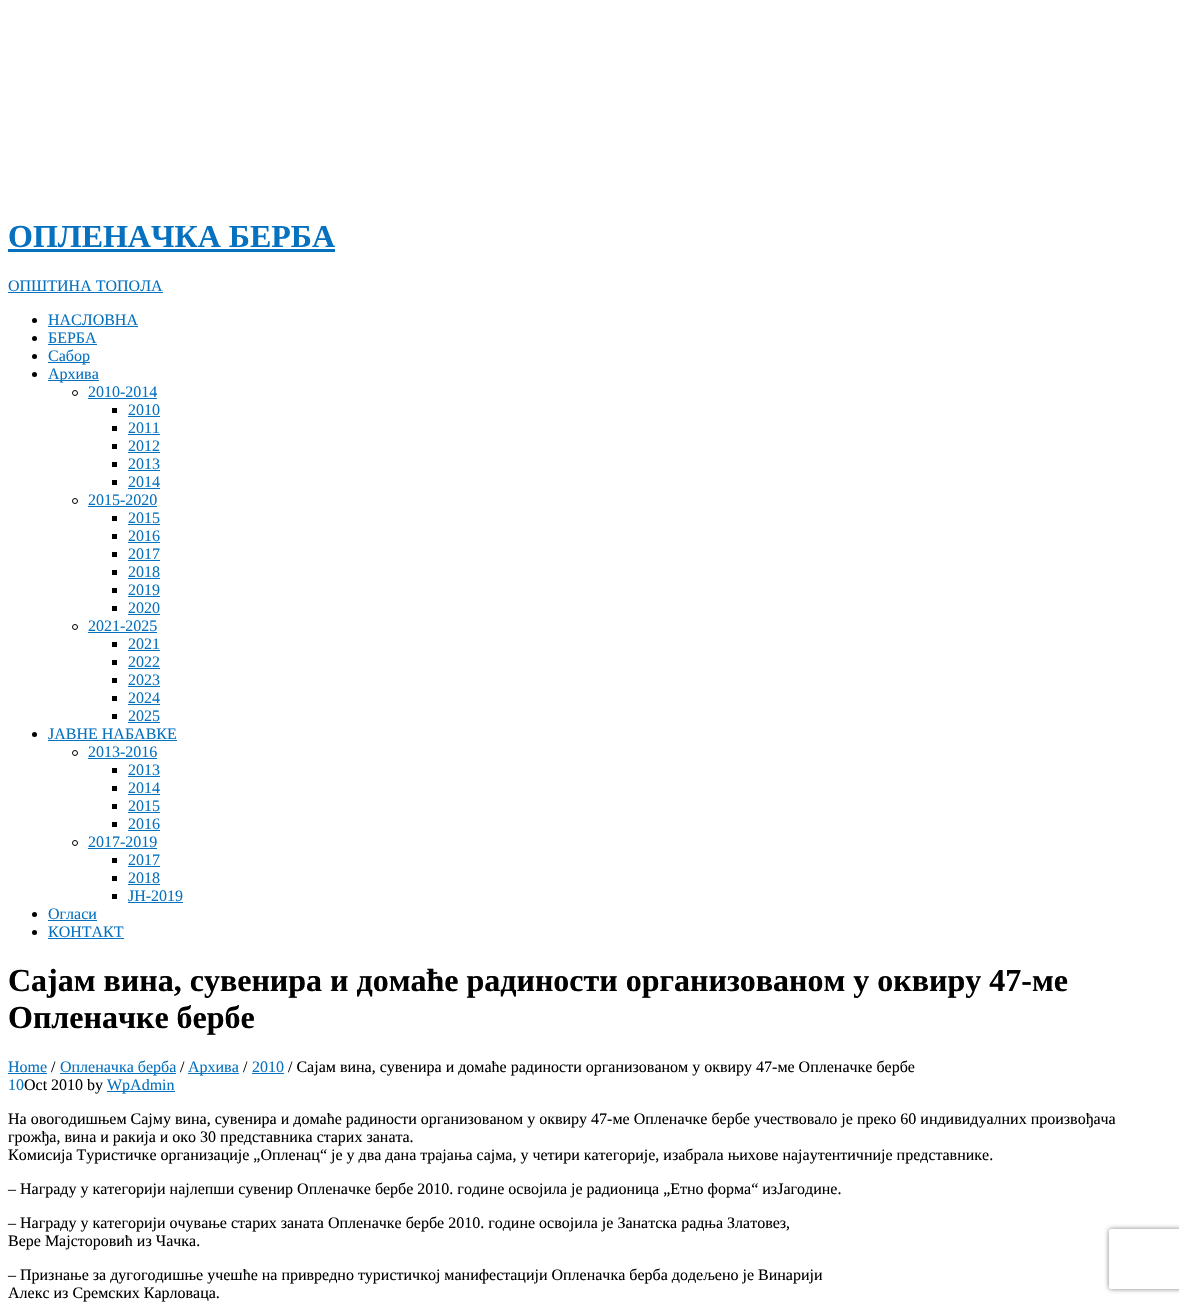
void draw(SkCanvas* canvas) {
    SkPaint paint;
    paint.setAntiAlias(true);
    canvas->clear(0xFFFFFFFF);
    SkFont font1(fontMgr->matchFamilyStyle("Liberation Serif", SkFontStyle::Bold()), 32);
    font1.setSubpixel(true);
    paint.setColor(0xFF0571BF);
    canvas->drawString("ОПЛЕНАЧКА БЕРБА", 8, 247, font1, paint);
    canvas->drawRect(SkRect::MakeXYWH(8, 249, 327, 3), paint);
    SkFont font2(fontMgr->matchFamilyStyle("Liberation Serif", SkFontStyle::Normal()), 16);
    font2.setSubpixel(true);
    canvas->drawString("ОПШТИНА ТОПОЛА", 8, 291, font2, paint);
    canvas->drawRect(SkRect::MakeXYWH(8, 292, 155, 1), paint);
    paint.setColor(0xFF000000);
    canvas->drawCircle(34.5f, 320.5f, 2.5f, paint);
    paint.setColor(0xFF0571BF);
    canvas->drawString("НАСЛОВНА", 48, 325, font2, paint);
    canvas->drawRect(SkRect::MakeXYWH(48, 326, 90, 1), paint);
    paint.setColor(0xFF000000);
    canvas->drawCircle(34.5f, 338.5f, 2.5f, paint);
    paint.setColor(0xFF0571BF);
    canvas->drawString("БЕРБА", 48, 343, font2, paint);
    canvas->drawRect(SkRect::MakeXYWH(48, 344, 49, 1), paint);
    paint.setColor(0xFF000000);
    canvas->drawCircle(34.5f, 356.5f, 2.5f, paint);
    paint.setColor(0xFF0571BF);
    canvas->drawRect(SkRect::MakeXYWH(48, 362, 42, 1), paint);
    canvas->drawString("Сабор", 48, 361, font2, paint);
    paint.setColor(0xFF000000);
    canvas->drawCircle(34.5f, 374.5f, 2.5f, paint);
    paint.setColor(0xFF0571BF);
    canvas->drawRect(SkRect::MakeXYWH(48, 380, 51, 1), paint);
    canvas->drawString("Архива", 48, 379, font2, paint);
    paint.setStyle(SkPaint::kStroke_Style);
    paint.setStrokeWidth(1);
    paint.setColor(0xFF000000);
    canvas->drawCircle(75, 393, 2.5f, paint);
    paint.setStyle(SkPaint::kFill_Style);
    paint.setColor(0xFF0571BF);
    canvas->drawString("2010-2014", 88, 397, font2, paint);
    canvas->drawRect(SkRect::MakeXYWH(88, 398, 69, 1), paint);
    paint.setColor(0xFF000000);
    canvas->drawRect(SkRect::MakeXYWH(112, 408, 5, 5), paint);
    paint.setColor(0xFF0571BF);
    canvas->drawString("2010", 128, 415, font2, paint);
    canvas->drawRect(SkRect::MakeXYWH(128, 416, 32, 1), paint);
    paint.setColor(0xFF000000);
    canvas->drawRect(SkRect::MakeXYWH(112, 426, 5, 5), paint);
    paint.setColor(0xFF0571BF);
    canvas->drawString("2011", 128, 433, font2, paint);
    canvas->drawRect(SkRect::MakeXYWH(128, 434, 32, 1), paint);
    paint.setColor(0xFF000000);
    canvas->drawRect(SkRect::MakeXYWH(112, 444, 5, 5), paint);
    paint.setColor(0xFF0571BF);
    canvas->drawString("2012", 128, 451, font2, paint);
    canvas->drawRect(SkRect::MakeXYWH(128, 452, 32, 1), paint);
    paint.setColor(0xFF000000);
    canvas->drawRect(SkRect::MakeXYWH(112, 462, 5, 5), paint);
    paint.setColor(0xFF0571BF);
    canvas->drawString("2013", 128, 469, font2, paint);
    canvas->drawRect(SkRect::MakeXYWH(128, 470, 32, 1), paint);
    paint.setColor(0xFF000000);
    canvas->drawRect(SkRect::MakeXYWH(112, 480, 5, 5), paint);
    paint.setColor(0xFF0571BF);
    canvas->drawString("2014", 128, 487, font2, paint);
    canvas->drawRect(SkRect::MakeXYWH(128, 488, 32, 1), paint);
    paint.setStyle(SkPaint::kStroke_Style);
    paint.setColor(0xFF000000);
    canvas->drawCircle(75, 501, 2.5f, paint);
    paint.setStyle(SkPaint::kFill_Style);
    paint.setColor(0xFF0571BF);
    canvas->drawString("2015-2020", 88, 505, font2, paint);
    canvas->drawRect(SkRect::MakeXYWH(88, 506, 69, 1), paint);
    paint.setColor(0xFF000000);
    canvas->drawRect(SkRect::MakeXYWH(112, 516, 5, 5), paint);
    paint.setColor(0xFF0571BF);
    canvas->drawString("2015", 128, 523, font2, paint);
    canvas->drawRect(SkRect::MakeXYWH(128, 524, 32, 1), paint);
    paint.setColor(0xFF000000);
    canvas->drawRect(SkRect::MakeXYWH(112, 534, 5, 5), paint);
    paint.setColor(0xFF0571BF);
    canvas->drawString("2016", 128, 541, font2, paint);
    canvas->drawRect(SkRect::MakeXYWH(128, 542, 32, 1), paint);
    paint.setColor(0xFF000000);
    canvas->drawRect(SkRect::MakeXYWH(112, 552, 5, 5), paint);
    paint.setColor(0xFF0571BF);
    canvas->drawString("2017", 128, 559, font2, paint);
    canvas->drawRect(SkRect::MakeXYWH(128, 560, 32, 1), paint);
    paint.setColor(0xFF000000);
    canvas->drawRect(SkRect::MakeXYWH(112, 570, 5, 5), paint);
    paint.setColor(0xFF0571BF);
    canvas->drawString("2018", 128, 577, font2, paint);
    canvas->drawRect(SkRect::MakeXYWH(128, 578, 32, 1), paint);
    paint.setColor(0xFF000000);
    canvas->drawRect(SkRect::MakeXYWH(112, 588, 5, 5), paint);
    paint.setColor(0xFF0571BF);
    canvas->drawString("2019", 128, 595, font2, paint);
    canvas->drawRect(SkRect::MakeXYWH(128, 596, 32, 1), paint);
    paint.setColor(0xFF000000);
    canvas->drawRect(SkRect::MakeXYWH(112, 606, 5, 5), paint);
    paint.setColor(0xFF0571BF);
    canvas->drawString("2020", 128, 613, font2, paint);
    canvas->drawRect(SkRect::MakeXYWH(128, 614, 32, 1), paint);
    paint.setStyle(SkPaint::kStroke_Style);
    paint.setColor(0xFF000000);
    canvas->drawCircle(75, 627, 2.5f, paint);
    paint.setStyle(SkPaint::kFill_Style);
    paint.setColor(0xFF0571BF);
    canvas->drawString("2021-2025", 88, 631, font2, paint);
    canvas->drawRect(SkRect::MakeXYWH(88, 632, 69, 1), paint);
    paint.setColor(0xFF000000);
    canvas->drawRect(SkRect::MakeXYWH(112, 642, 5, 5), paint);
    paint.setColor(0xFF0571BF);
    canvas->drawString("2021", 128, 649, font2, paint);
    canvas->drawRect(SkRect::MakeXYWH(128, 650, 32, 1), paint);
    paint.setColor(0xFF000000);
    canvas->drawRect(SkRect::MakeXYWH(112, 660, 5, 5), paint);
    paint.setColor(0xFF0571BF);
    canvas->drawString("2022", 128, 667, font2, paint);
    canvas->drawRect(SkRect::MakeXYWH(128, 668, 32, 1), paint);
    paint.setColor(0xFF000000);
    canvas->drawRect(SkRect::MakeXYWH(112, 678, 5, 5), paint);
    paint.setColor(0xFF0571BF);
    canvas->drawString("2023", 128, 685, font2, paint);
    canvas->drawRect(SkRect::MakeXYWH(128, 686, 32, 1), paint);
    paint.setColor(0xFF000000);
    canvas->drawRect(SkRect::MakeXYWH(112, 696, 5, 5), paint);
    paint.setColor(0xFF0571BF);
    canvas->drawString("2024", 128, 703, font2, paint);
    canvas->drawRect(SkRect::MakeXYWH(128, 704, 32, 1), paint);
    paint.setColor(0xFF000000);
    canvas->drawRect(SkRect::MakeXYWH(112, 714, 5, 5), paint);
    paint.setColor(0xFF0571BF);
    canvas->drawString("2025", 128, 721, font2, paint);
    canvas->drawRect(SkRect::MakeXYWH(128, 722, 32, 1), paint);
    paint.setColor(0xFF000000);
    canvas->drawCircle(34.5f, 734.5f, 2.5f, paint);
    paint.setColor(0xFF0571BF);
    canvas->drawString("ЈАВНЕ НАБАВКЕ", 48, 739, font2, paint);
    canvas->drawRect(SkRect::MakeXYWH(48, 740, 129, 1), paint);
    paint.setStyle(SkPaint::kStroke_Style);
    paint.setColor(0xFF000000);
    canvas->drawCircle(75, 753, 2.5f, paint);
    paint.setStyle(SkPaint::kFill_Style);
    paint.setColor(0xFF0571BF);
    canvas->drawString("2013-2016", 88, 757, font2, paint);
    canvas->drawRect(SkRect::MakeXYWH(88, 758, 69, 1), paint);
    paint.setColor(0xFF000000);
    canvas->drawRect(SkRect::MakeXYWH(112, 768, 5, 5), paint);
    paint.setColor(0xFF0571BF);
    canvas->drawString("2013", 128, 775, font2, paint);
    canvas->drawRect(SkRect::MakeXYWH(128, 776, 32, 1), paint);
    paint.setColor(0xFF000000);
    canvas->drawRect(SkRect::MakeXYWH(112, 786, 5, 5), paint);
    paint.setColor(0xFF0571BF);
    canvas->drawString("2014", 128, 793, font2, paint);
    canvas->drawRect(SkRect::MakeXYWH(128, 794, 32, 1), paint);
    paint.setColor(0xFF000000);
    canvas->drawRect(SkRect::MakeXYWH(112, 804, 5, 5), paint);
    paint.setColor(0xFF0571BF);
    canvas->drawString("2015", 128, 811, font2, paint);
    canvas->drawRect(SkRect::MakeXYWH(128, 812, 32, 1), paint);
    paint.setColor(0xFF000000);
    canvas->drawRect(SkRect::MakeXYWH(112, 822, 5, 5), paint);
    paint.setColor(0xFF0571BF);
    canvas->drawString("2016", 128, 829, font2, paint);
    canvas->drawRect(SkRect::MakeXYWH(128, 830, 32, 1), paint);
    paint.setStyle(SkPaint::kStroke_Style);
    paint.setColor(0xFF000000);
    canvas->drawCircle(75, 843, 2.5f, paint);
    paint.setStyle(SkPaint::kFill_Style);
    paint.setColor(0xFF0571BF);
    canvas->drawString("2017-2019", 88, 847, font2, paint);
    canvas->drawRect(SkRect::MakeXYWH(88, 848, 69, 1), paint);
    paint.setColor(0xFF000000);
    canvas->drawRect(SkRect::MakeXYWH(112, 858, 5, 5), paint);
    paint.setColor(0xFF0571BF);
    canvas->drawString("2017", 128, 865, font2, paint);
    canvas->drawRect(SkRect::MakeXYWH(128, 866, 32, 1), paint);
    paint.setColor(0xFF000000);
    canvas->drawRect(SkRect::MakeXYWH(112, 876, 5, 5), paint);
    paint.setColor(0xFF0571BF);
    canvas->drawString("2018", 128, 883, font2, paint);
    canvas->drawRect(SkRect::MakeXYWH(128, 884, 32, 1), paint);
    paint.setColor(0xFF000000);
    canvas->drawRect(SkRect::MakeXYWH(112, 894, 5, 5), paint);
    paint.setColor(0xFF0571BF);
    canvas->drawString("ЈН-2019", 128, 901, font2, paint);
    canvas->drawRect(SkRect::MakeXYWH(128, 902, 55, 1), paint);
    paint.setColor(0xFF000000);
    canvas->drawCircle(34.5f, 914.5f, 2.5f, paint);
    paint.setColor(0xFF0571BF);
    canvas->drawString("Огласи", 48, 919, font2, paint);
    canvas->drawRect(SkRect::MakeXYWH(48, 920, 49, 1), paint);
    paint.setColor(0xFF000000);
    canvas->drawCircle(34.5f, 932.5f, 2.5f, paint);
    paint.setColor(0xFF0571BF);
    canvas->drawString("КОНТАКТ", 48, 937, font2, paint);
    canvas->drawRect(SkRect::MakeXYWH(48, 938, 76, 1), paint);
    paint.setColor(0xFF000000);
    canvas->drawString("Сајам вина, сувенира и домаће радиности организованом у оквиру 47-ме", 8, 991, font1, paint);
    canvas->drawString("Опленачке бербе", 8, 1028, font1, paint);
    paint.setColor(0xFF0571BF);
    canvas->drawString("Home", 8, 1072, font2, paint);
    canvas->drawRect(SkRect::MakeXYWH(8, 1073, 39, 1), paint);
    paint.setColor(0xFF000000);
    canvas->drawString("/", 51, 1072, font2, paint);
    paint.setColor(0xFF0571BF);
    canvas->drawRect(SkRect::MakeXYWH(60, 1073, 116, 1), paint);
    canvas->drawString("Опленачка берба", 60, 1072, font2, paint);
    paint.setColor(0xFF000000);
    canvas->drawString("/", 180, 1072, font2, paint);
    paint.setColor(0xFF0571BF);
    canvas->drawRect(SkRect::MakeXYWH(188, 1073, 51, 1), paint);
    canvas->drawString("Архива", 188, 1072, font2, paint);
    paint.setColor(0xFF000000);
    canvas->drawString("/", 243, 1072, font2, paint);
    paint.setColor(0xFF0571BF);
    canvas->drawString("2010", 252, 1072, font2, paint);
    canvas->drawRect(SkRect::MakeXYWH(252, 1073, 32, 1), paint);
    paint.setColor(0xFF000000);
    canvas->drawString("/ Сајам вина, сувенира и домаће радиности организованом у оквиру 47-ме Опленачке бербе", 288, 1072, font2, paint);
    paint.setColor(0xFF0571BF);
    canvas->drawString("10", 8, 1090, font2, paint);
    paint.setColor(0xFF000000);
    canvas->drawString("Oct 2010 by", 24, 1090, font2, paint);
    paint.setColor(0xFF0571BF);
    canvas->drawRect(SkRect::MakeXYWH(107, 1091, 68, 1), paint);
    canvas->drawString("WpAdmin", 107, 1090, font2, paint);
    paint.setColor(0xFF000000);
    canvas->drawString("На овогодишњем Сајму вина, сувенира и домаће радиности организованом у оквиру 47-ме Опленачке бербе учествовало је преко 60 индивидуалних произвођача", 8, 1124, font2, paint);
    canvas->drawString("грожђа, вина и ракија и око 30 представника старих заната.", 8, 1142, font2, paint);
    canvas->drawString("Комисија Туристичке организације „Опленац“ је у два дана трајања сајма, у четири категорије, изабрала њихове најаутентичније представнике.", 8, 1160, font2, paint);
    canvas->drawString("– Награду у категорији најлепши сувенир Опленачке бербе 2010. године освојила је радионица „Етно форма“ изЈагодине.", 8, 1194, font2, paint);
    canvas->drawString("– Награду у категорији очување старих заната Опленачке бербе 2010. године освојила је Занатска радња Златовез,", 8, 1228, font2, paint);
    canvas->drawString("Вере Мајсторовић из Чачка.", 8, 1246, font2, paint);
    canvas->drawString("– Признање за дугогодишње учешће на привредно туристичкој манифестацији Опленачка берба додељено је Винарији", 8, 1280, font2, paint);
    canvas->drawString("Алекс из Сремских Карловаца.", 8, 1298, font2, paint);
    canvas->save();
    canvas->clipPath(SkPathBuilder(SkPathFillType::kEvenOdd).moveTo(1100, 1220).lineTo(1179, 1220).lineTo(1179, 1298).lineTo(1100, 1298).close().moveTo(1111, 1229).lineTo(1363, 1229).cubicTo(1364, 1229, 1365, 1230, 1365, 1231).lineTo(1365, 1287).cubicTo(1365, 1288, 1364, 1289, 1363, 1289).lineTo(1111, 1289).cubicTo(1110, 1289, 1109, 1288, 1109, 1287).lineTo(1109, 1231).cubicTo(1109, 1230, 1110, 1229, 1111, 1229).close().detach(), true);
    paint.setColor(0xFF808080);
    paint.setMaskFilter(SkMaskFilter::MakeBlur(kNormal_SkBlurStyle, 2.5f));
    canvas->drawRoundRect(SkRect::MakeXYWH(1109, 1229, 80, 60), 2, 2, paint);
    paint.setMaskFilter(nullptr);
    canvas->restore();
}
